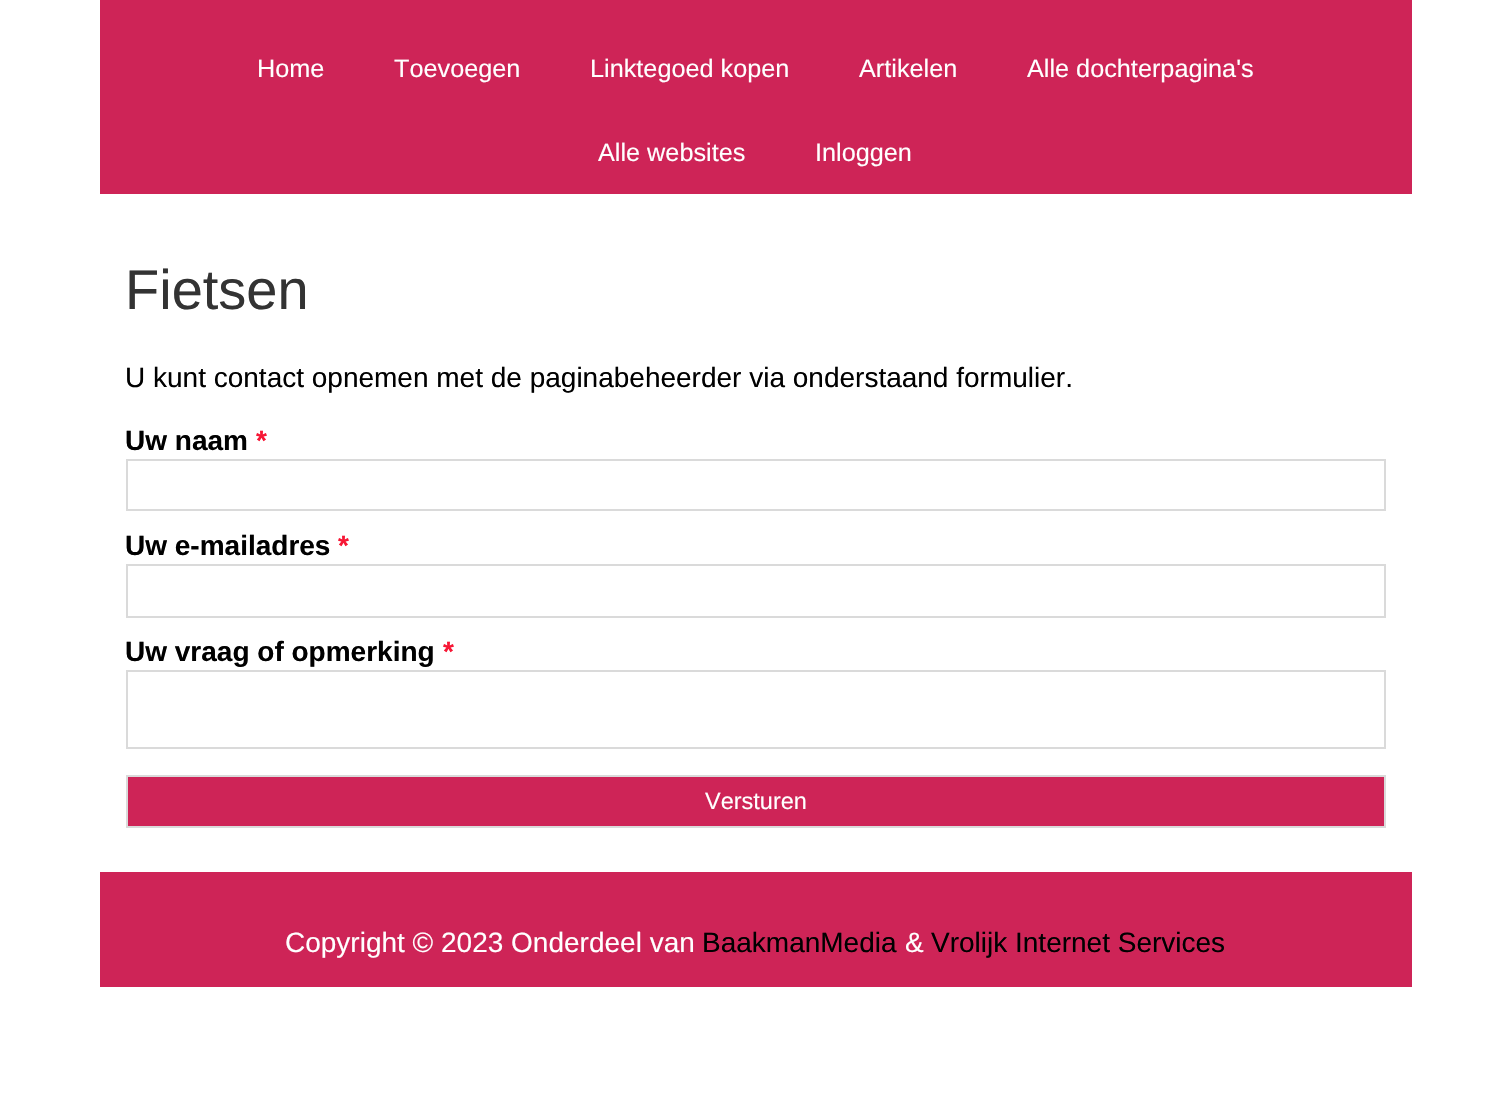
void draw(SkCanvas* canvas) {
    SkPaint paint;
    paint.setAntiAlias(true);
    canvas->clear(0xFFFFFFFF);
    paint.setColor(0xFFCE2457);
    canvas->drawRect(SkRect::MakeXYWH(100, 0, 1312, 194), paint);
    SkFont font1(fontMgr->matchFamilyStyle("Liberation Sans", SkFontStyle::Normal()), 25.25f);
    font1.setSubpixel(true);
    paint.setColor(0xFFFFFFFF);
    canvas->drawString("Home", 257, 77, font1, paint);
    canvas->drawString("Toevoegen", 394, 77, font1, paint);
    canvas->drawString("Linktegoed kopen", 590, 77, font1, paint);
    canvas->drawString("Artikelen", 859, 77, font1, paint);
    canvas->drawString("Alle dochterpagina's", 1027, 77, font1, paint);
    canvas->drawString("Alle websites", 598, 161, font1, paint);
    canvas->drawString("Inloggen", 815, 161, font1, paint);
    SkFont font2(fontMgr->matchFamilyStyle("Liberation Sans", SkFontStyle::Normal()), 56);
    font2.setSubpixel(true);
    paint.setColor(0xFF333333);
    canvas->drawString("Fietsen", 125, 309, font2, paint);
    SkFont font3(fontMgr->matchFamilyStyle("Liberation Sans", SkFontStyle::Normal()), 28);
    font3.setSubpixel(true);
    paint.setColor(0xFF000000);
    canvas->drawString("U kunt contact opnemen met de paginabeheerder via onderstaand formulier.", 125, 387, font3, paint);
    SkFont font4(fontMgr->matchFamilyStyle("Liberation Sans", SkFontStyle::Bold()), 28);
    font4.setSubpixel(true);
    canvas->drawString("Uw naam", 125, 450, font4, paint);
    paint.setColor(0xFFF71735);
    canvas->drawString("*", 256, 450, font4, paint);
    paint.setStyle(SkPaint::kStroke_Style);
    paint.setStrokeWidth(2);
    paint.setColor(0xFFDADADA);
    canvas->drawRect(SkRect::MakeXYWH(127, 460, 1258, 50), paint);
    paint.setStyle(SkPaint::kFill_Style);
    paint.setColor(0xFF000000);
    canvas->drawString("Uw e-mailadres", 125, 555, font4, paint);
    paint.setColor(0xFFF71735);
    canvas->drawString("*", 338, 555, font4, paint);
    paint.setStyle(SkPaint::kStroke_Style);
    paint.setColor(0xFFDADADA);
    canvas->drawRect(SkRect::MakeXYWH(127, 565, 1258, 52), paint);
    paint.setStyle(SkPaint::kFill_Style);
    paint.setColor(0xFF000000);
    canvas->drawString("Uw vraag of opmerking", 125, 661, font4, paint);
    paint.setColor(0xFFF71735);
    canvas->drawString("*", 443, 661, font4, paint);
    paint.setStyle(SkPaint::kStroke_Style);
    paint.setColor(0xFFDADADA);
    canvas->drawRect(SkRect::MakeXYWH(127, 671, 1258, 77), paint);
    paint.setStyle(SkPaint::kFill_Style);
    paint.setColor(0xFFCE2457);
    canvas->drawRect(SkRect::MakeXYWH(127, 776, 1258, 51), paint);
    paint.setStyle(SkPaint::kStroke_Style);
    paint.setColor(0xFFDADADA);
    canvas->drawRect(SkRect::MakeXYWH(127, 776, 1258, 51), paint);
    SkFont font5(fontMgr->matchFamilyStyle("Liberation Sans", SkFontStyle::Normal()), 23.5f);
    font5.setSubpixel(true);
    paint.setStyle(SkPaint::kFill_Style);
    paint.setColor(0xFFFFFFFF);
    canvas->drawString("Versturen", 705, 809, font5, paint);
    paint.setColor(0xFFCE2457);
    canvas->drawRect(SkRect::MakeXYWH(100, 872, 1312, 115), paint);
    paint.setColor(0xFFFFFFFF);
    canvas->drawString("Copyright © 2023 Onderdeel van", 285, 952, font3, paint);
    paint.setColor(0xFF000000);
    canvas->drawString("BaakmanMedia", 702, 952, font3, paint);
    paint.setColor(0xFFFFFFFF);
    canvas->drawString("&", 905, 952, font3, paint);
    paint.setColor(0xFF000000);
    canvas->drawString("Vrolijk Internet Services", 931, 952, font3, paint);
}
